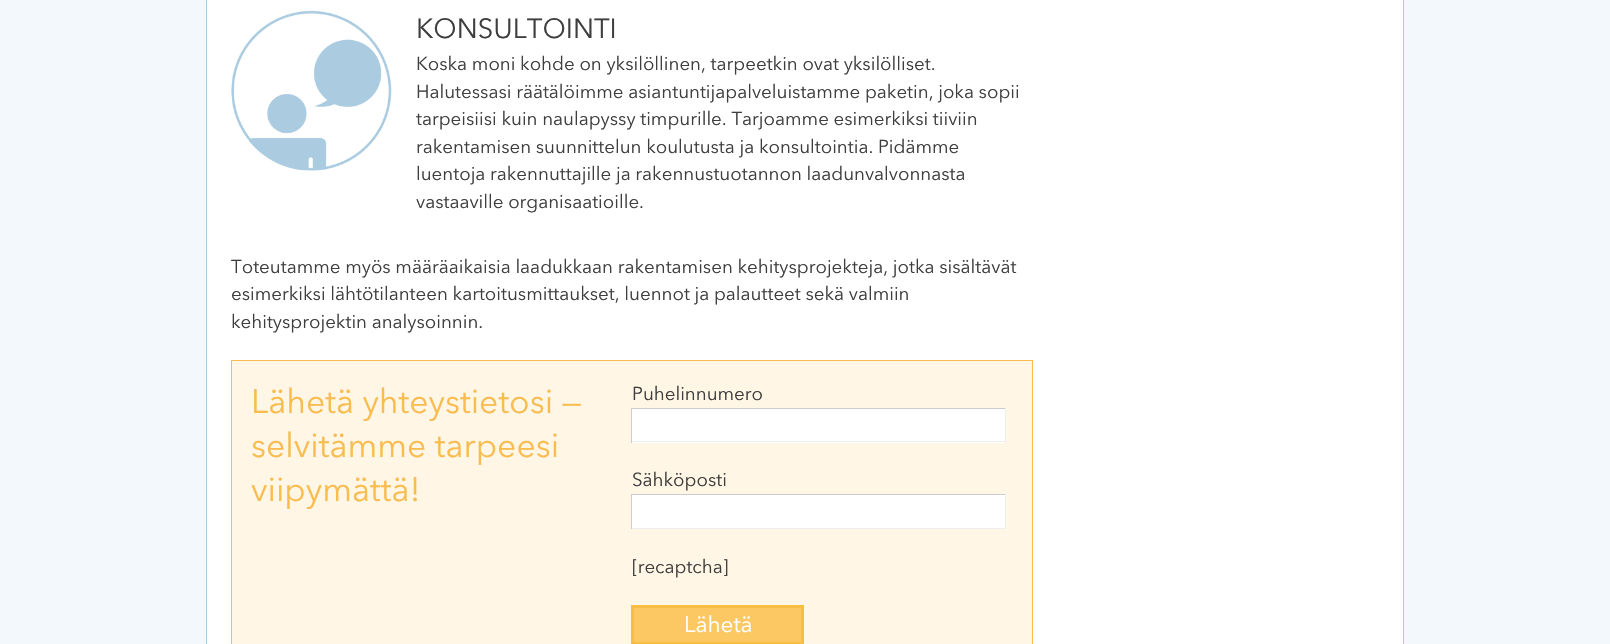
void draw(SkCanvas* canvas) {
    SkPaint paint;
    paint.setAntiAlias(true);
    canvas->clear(0xFFF3F8FC);
    paint.setColor(0xFFFFFFFF);
    canvas->drawRect(SkRect::MakeXYWH(207, 0, 1196, 644), paint);
    paint.setColor(0xFFAACBE0);
    canvas->drawRect(SkRect::MakeXYWH(1403, 0, 1, 644), paint);
    canvas->drawRect(SkRect::MakeXYWH(206, 0, 1, 644), paint);
    canvas->drawImageRect(SkImages::DeferredFromEncodedData(SkData::MakeFromFileName("img1.png")), SkRect::MakeXYWH(231, 10, 161, 161), SkSamplingOptions());
    SkFont font1(fontMgr->matchFamilyStyle("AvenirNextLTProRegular", SkFontStyle::Normal()), 27.5f);
    font1.setSubpixel(true);
    paint.setColor(0xFF3E3E3E);
    canvas->drawString("KONSULTOINTI", 416, 38, font1, paint);
    SkFont font2(fontMgr->matchFamilyStyle("AvenirNextLTProRegular", SkFontStyle::Normal()), 18.75f);
    font2.setSubpixel(true);
    canvas->drawString("Koska moni kohde on yksilöllinen, tarpeetkin ovat yksilölliset.", 416, 70, font2, paint);
    canvas->drawString("Halutessasi räätälöimme asiantuntijapalveluistamme paketin, joka sopii", 416, 98, font2, paint);
    canvas->drawString("tarpeisiisi kuin naulapyssy timpurille. Tarjoamme esimerkiksi tiiviin", 416, 125, font2, paint);
    canvas->drawString("rakentamisen suunnittelun koulutusta ja konsultointia. Pidämme", 416, 153, font2, paint);
    canvas->drawString("luentoja rakennuttajille ja rakennustuotannon laadunvalvonnasta", 416, 180, font2, paint);
    canvas->drawString("vastaaville organisaatioille.", 416, 208, font2, paint);
    canvas->drawString("Toteutamme myös määräaikaisia laadukkaan rakentamisen kehitysprojekteja, jotka sisältävät", 231, 273, font2, paint);
    canvas->drawString("esimerkiksi lähtötilanteen kartoitusmittaukset, luennot ja palautteet sekä valmiin", 231, 300, font2, paint);
    canvas->drawString("kehitysprojektin analysoinnin.", 231, 328, font2, paint);
    paint.setColor(0xFFFFF6E5);
    canvas->drawRect(SkRect::MakeXYWH(231.5f, 360.5f, 801, 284), paint);
    paint.setStyle(SkPaint::kStroke_Style);
    paint.setStrokeWidth(1);
    paint.setColor(0xFFF9BC4F);
    canvas->drawRect(SkRect::MakeXYWH(231.5f, 360.5f, 801, 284), paint);
    SkFont font3(fontMgr->matchFamilyStyle("AvenirNextLTProRegular", SkFontStyle::Normal()), 33.75f);
    font3.setSubpixel(true);
    paint.setStyle(SkPaint::kFill_Style);
    canvas->drawString("Lähetä yhteystietosi —", 251, 413, font3, paint);
    canvas->drawString("selvitämme tarpeesi", 251, 457, font3, paint);
    canvas->drawString("viipymättä!", 251, 501, font3, paint);
    paint.setColor(0xFF3E3E3E);
    canvas->drawString("Puhelinnumero", 632, 400, font2, paint);
    paint.setColor(0xFFFFFFFF);
    canvas->drawRect(SkRect::MakeXYWH(632, 409, 373, 34), paint);
    paint.setColor(0xFFCCCCCC);
    canvas->drawRect(SkRect::MakeXYWH(631, 408, 375, 1), paint);
    paint.setColor(0xFFEEEEEE);
    canvas->drawRect(SkRect::MakeXYWH(1005, 408, 1, 35), paint);
    canvas->drawRect(SkRect::MakeXYWH(631, 441, 375, 1), paint);
    paint.setColor(0xFFCCCCCC);
    canvas->drawRect(SkRect::MakeXYWH(631, 408, 1, 35), paint);
    paint.setColor(0xFF3E3E3E);
    canvas->drawString("Sähköposti", 632, 486, font2, paint);
    paint.setColor(0xFFFFFFFF);
    canvas->drawRect(SkRect::MakeXYWH(632, 495, 373, 33), paint);
    paint.setColor(0xFFCCCCCC);
    canvas->drawRect(SkRect::MakeXYWH(631, 494, 375, 1), paint);
    paint.setColor(0xFFEEEEEE);
    canvas->drawRect(SkRect::MakeXYWH(1005, 494, 1, 35), paint);
    canvas->drawRect(SkRect::MakeXYWH(631, 528, 375, 1), paint);
    paint.setColor(0xFFCCCCCC);
    canvas->drawRect(SkRect::MakeXYWH(631, 494, 1, 35), paint);
    paint.setColor(0xFF3E3E3E);
    canvas->drawString("[recaptcha]", 632, 573, font2, paint);
    paint.setColor(0xFFFBC863);
    canvas->drawRect(SkRect::MakeXYWH(632.5f, 606.5f, 170, 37), paint);
    paint.setStyle(SkPaint::kStroke_Style);
    paint.setStrokeWidth(3);
    paint.setColor(0xFFFABD43);
    canvas->drawRect(SkRect::MakeXYWH(632.5f, 606.5f, 170, 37), paint);
    SkFont font4(fontMgr->matchFamilyStyle("AvenirNextLTProRegular", SkFontStyle::Normal()), 22.5f);
    font4.setSubpixel(true);
    paint.setStyle(SkPaint::kFill_Style);
    paint.setColor(0xFFFFFFFF);
    canvas->drawString("Lähetä", 684, 632, font4, paint);
}
